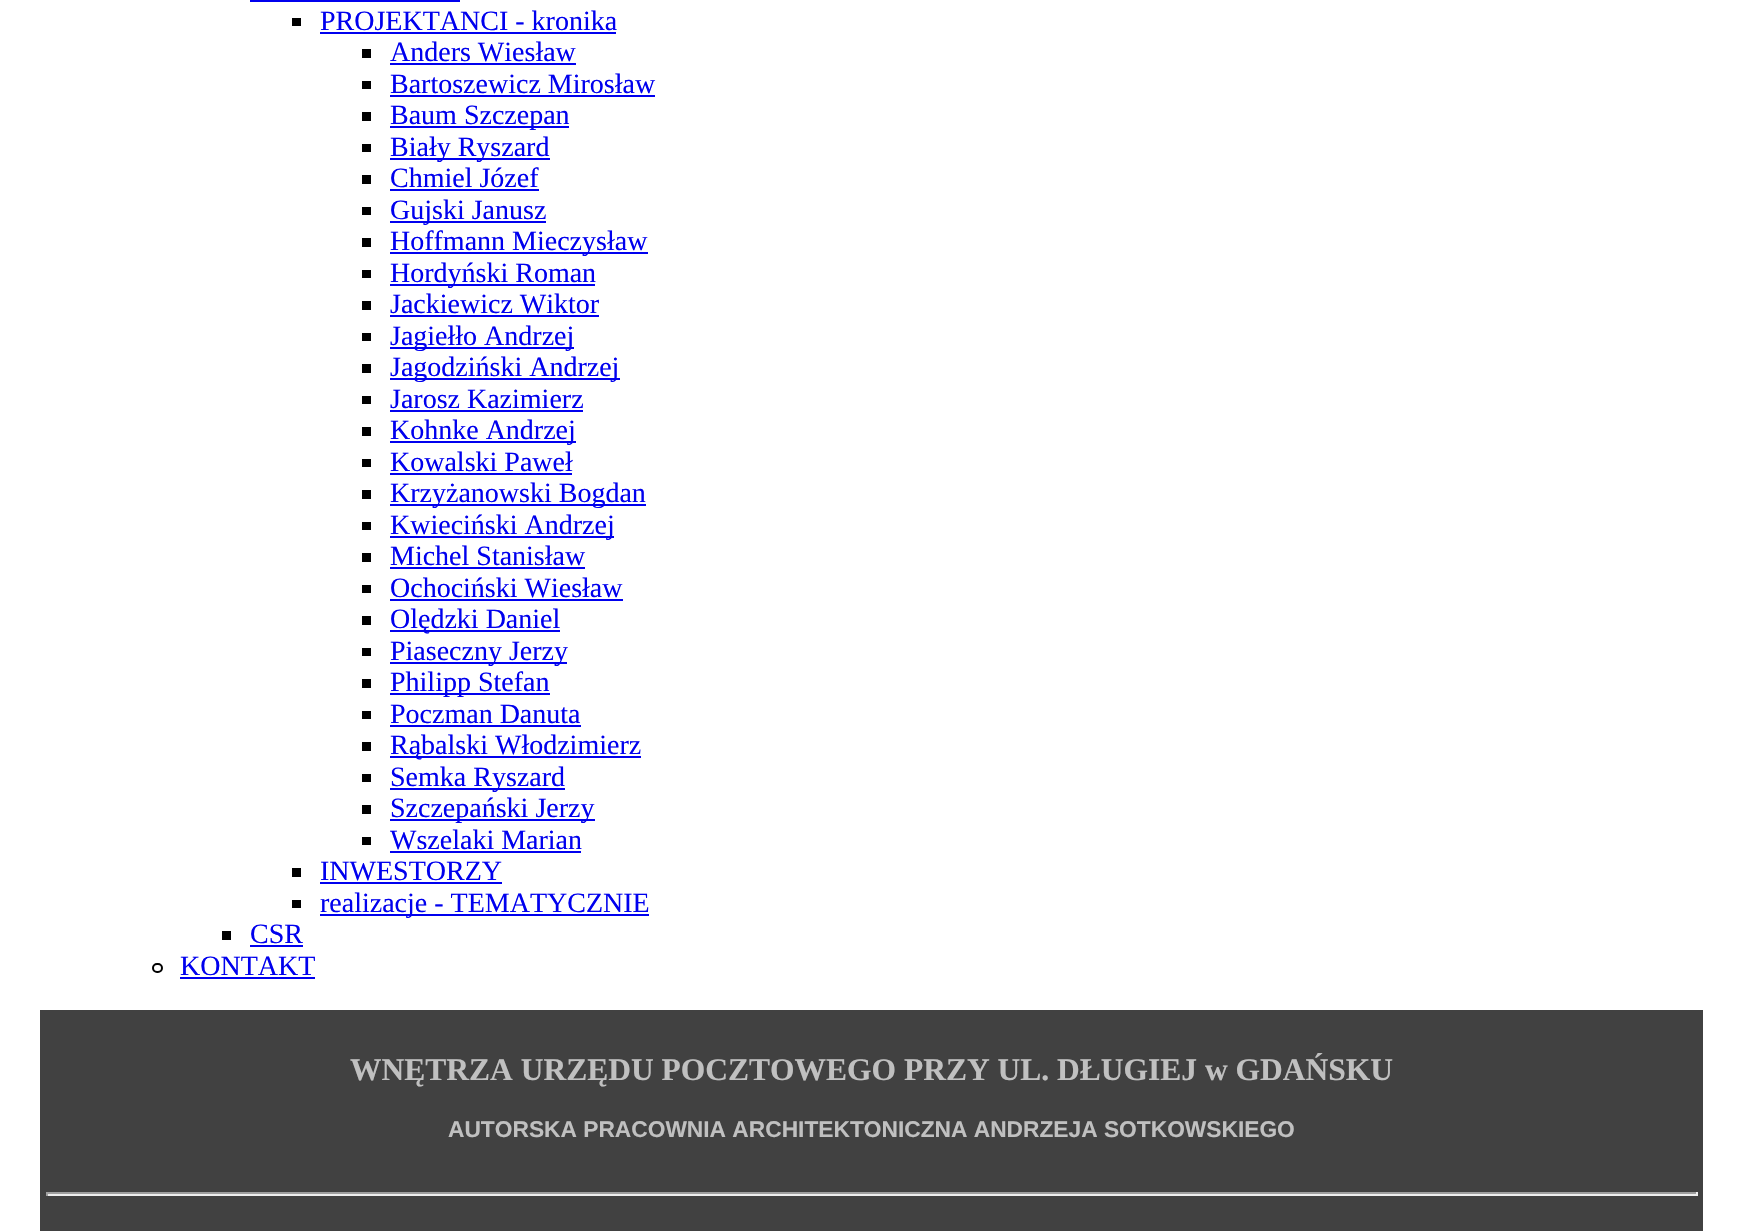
void draw(SkCanvas* canvas) {
    SkPaint paint;
    paint.setAntiAlias(true);
    canvas->clear(0xFFFFFFFF);
    paint.setColor(0xFF0000EE);
    canvas->drawRect(SkRect::MakeXYWH(250, 0, 210, 2), paint);
    paint.setColor(0xFF000000);
    canvas->drawRect(SkRect::MakeXYWH(292, 18, 9, 8), paint);
    SkFont font1(fontMgr->matchFamilyStyle("Liberation Serif", SkFontStyle::Normal()), 28);
    font1.setSubpixel(true);
    paint.setColor(0xFF0000EE);
    canvas->drawString("PROJEKTANCI - kronika", 320, 30, font1, paint);
    canvas->drawRect(SkRect::MakeXYWH(320, 32, 296, 2), paint);
    paint.setColor(0xFF000000);
    canvas->drawRect(SkRect::MakeXYWH(362, 49, 9, 9), paint);
    paint.setColor(0xFF0000EE);
    canvas->drawString("Anders Wiesław", 390, 61, font1, paint);
    canvas->drawRect(SkRect::MakeXYWH(390, 63, 186, 2), paint);
    paint.setColor(0xFF000000);
    canvas->drawRect(SkRect::MakeXYWH(362, 81, 9, 8), paint);
    paint.setColor(0xFF0000EE);
    canvas->drawString("Bartoszewicz Mirosław", 390, 93, font1, paint);
    canvas->drawRect(SkRect::MakeXYWH(390, 95, 265, 2), paint);
    paint.setColor(0xFF000000);
    canvas->drawRect(SkRect::MakeXYWH(362, 112, 9, 9), paint);
    paint.setColor(0xFF0000EE);
    canvas->drawRect(SkRect::MakeXYWH(390, 126, 179, 2), paint);
    canvas->drawString("Baum Szczepan", 390, 124, font1, paint);
    paint.setColor(0xFF000000);
    canvas->drawRect(SkRect::MakeXYWH(362, 144, 9, 8), paint);
    paint.setColor(0xFF0000EE);
    canvas->drawRect(SkRect::MakeXYWH(390, 158, 160, 2), paint);
    canvas->drawString("Biały Ryszard", 390, 156, font1, paint);
    paint.setColor(0xFF000000);
    canvas->drawRect(SkRect::MakeXYWH(362, 175, 9, 9), paint);
    paint.setColor(0xFF0000EE);
    canvas->drawString("Chmiel Józef", 390, 187, font1, paint);
    canvas->drawRect(SkRect::MakeXYWH(390, 189, 149, 2), paint);
    paint.setColor(0xFF000000);
    canvas->drawRect(SkRect::MakeXYWH(362, 207, 9, 8), paint);
    paint.setColor(0xFF0000EE);
    canvas->drawRect(SkRect::MakeXYWH(390, 221, 156, 2), paint);
    canvas->drawString("Gujski Janusz", 390, 219, font1, paint);
    paint.setColor(0xFF000000);
    canvas->drawRect(SkRect::MakeXYWH(362, 238, 9, 9), paint);
    paint.setColor(0xFF0000EE);
    canvas->drawRect(SkRect::MakeXYWH(390, 252, 258, 2), paint);
    canvas->drawString("Hoffmann Mieczysław", 390, 250, font1, paint);
    paint.setColor(0xFF000000);
    canvas->drawRect(SkRect::MakeXYWH(362, 270, 9, 8), paint);
    paint.setColor(0xFF0000EE);
    canvas->drawRect(SkRect::MakeXYWH(390, 284, 205, 2), paint);
    canvas->drawString("Hordyński Roman", 390, 282, font1, paint);
    paint.setColor(0xFF000000);
    canvas->drawRect(SkRect::MakeXYWH(362, 301, 9, 9), paint);
    paint.setColor(0xFF0000EE);
    canvas->drawString("Jackiewicz Wiktor", 390, 313, font1, paint);
    canvas->drawRect(SkRect::MakeXYWH(390, 315, 209, 2), paint);
    paint.setColor(0xFF000000);
    canvas->drawRect(SkRect::MakeXYWH(362, 333, 9, 8), paint);
    paint.setColor(0xFF0000EE);
    canvas->drawRect(SkRect::MakeXYWH(390, 347, 184, 2), paint);
    canvas->drawString("Jagiełło Andrzej", 390, 345, font1, paint);
    paint.setColor(0xFF000000);
    canvas->drawRect(SkRect::MakeXYWH(362, 364, 9, 9), paint);
    paint.setColor(0xFF0000EE);
    canvas->drawRect(SkRect::MakeXYWH(390, 378, 230, 2), paint);
    canvas->drawString("Jagodziński Andrzej", 390, 376, font1, paint);
    paint.setColor(0xFF000000);
    canvas->drawRect(SkRect::MakeXYWH(362, 396, 9, 8), paint);
    paint.setColor(0xFF0000EE);
    canvas->drawString("Jarosz Kazimierz", 390, 408, font1, paint);
    canvas->drawRect(SkRect::MakeXYWH(390, 410, 193, 2), paint);
    paint.setColor(0xFF000000);
    canvas->drawRect(SkRect::MakeXYWH(362, 427, 9, 9), paint);
    paint.setColor(0xFF0000EE);
    canvas->drawRect(SkRect::MakeXYWH(390, 441, 186, 2), paint);
    canvas->drawString("Kohnke Andrzej", 390, 439, font1, paint);
    paint.setColor(0xFF000000);
    canvas->drawRect(SkRect::MakeXYWH(362, 459, 9, 8), paint);
    paint.setColor(0xFF0000EE);
    canvas->drawString("Kowalski Paweł", 390, 471, font1, paint);
    canvas->drawRect(SkRect::MakeXYWH(390, 473, 182, 2), paint);
    paint.setColor(0xFF000000);
    canvas->drawRect(SkRect::MakeXYWH(362, 490, 9, 9), paint);
    paint.setColor(0xFF0000EE);
    canvas->drawRect(SkRect::MakeXYWH(390, 504, 256, 2), paint);
    canvas->drawString("Krzyżanowski Bogdan", 390, 502, font1, paint);
    paint.setColor(0xFF000000);
    canvas->drawRect(SkRect::MakeXYWH(362, 522, 9, 8), paint);
    paint.setColor(0xFF0000EE);
    canvas->drawRect(SkRect::MakeXYWH(390, 536, 224, 2), paint);
    canvas->drawString("Kwieciński Andrzej", 390, 534, font1, paint);
    paint.setColor(0xFF000000);
    canvas->drawRect(SkRect::MakeXYWH(362, 553, 9, 9), paint);
    paint.setColor(0xFF0000EE);
    canvas->drawString("Michel Stanisław", 390, 565, font1, paint);
    canvas->drawRect(SkRect::MakeXYWH(390, 567, 195, 2), paint);
    paint.setColor(0xFF000000);
    canvas->drawRect(SkRect::MakeXYWH(362, 585, 9, 8), paint);
    paint.setColor(0xFF0000EE);
    canvas->drawString("Ochociński Wiesław", 390, 597, font1, paint);
    canvas->drawRect(SkRect::MakeXYWH(390, 599, 233, 2), paint);
    paint.setColor(0xFF000000);
    canvas->drawRect(SkRect::MakeXYWH(362, 616, 9, 9), paint);
    paint.setColor(0xFF0000EE);
    canvas->drawRect(SkRect::MakeXYWH(390, 630, 170, 2), paint);
    canvas->drawString("Olędzki Daniel", 390, 628, font1, paint);
    paint.setColor(0xFF000000);
    canvas->drawRect(SkRect::MakeXYWH(362, 648, 9, 8), paint);
    paint.setColor(0xFF0000EE);
    canvas->drawRect(SkRect::MakeXYWH(390, 662, 177, 2), paint);
    canvas->drawString("Piaseczny Jerzy", 390, 660, font1, paint);
    paint.setColor(0xFF000000);
    canvas->drawRect(SkRect::MakeXYWH(362, 679, 9, 9), paint);
    paint.setColor(0xFF0000EE);
    canvas->drawRect(SkRect::MakeXYWH(390, 693, 160, 2), paint);
    canvas->drawString("Philipp Stefan", 390, 691, font1, paint);
    paint.setColor(0xFF000000);
    canvas->drawRect(SkRect::MakeXYWH(362, 711, 9, 8), paint);
    paint.setColor(0xFF0000EE);
    canvas->drawString("Poczman Danuta", 390, 723, font1, paint);
    canvas->drawRect(SkRect::MakeXYWH(390, 725, 191, 2), paint);
    paint.setColor(0xFF000000);
    canvas->drawRect(SkRect::MakeXYWH(362, 742, 9, 9), paint);
    paint.setColor(0xFF0000EE);
    canvas->drawRect(SkRect::MakeXYWH(390, 756, 251, 2), paint);
    canvas->drawString("Rąbalski Włodzimierz", 390, 754, font1, paint);
    paint.setColor(0xFF000000);
    canvas->drawRect(SkRect::MakeXYWH(362, 774, 9, 8), paint);
    paint.setColor(0xFF0000EE);
    canvas->drawRect(SkRect::MakeXYWH(390, 788, 175, 2), paint);
    canvas->drawString("Semka Ryszard", 390, 786, font1, paint);
    paint.setColor(0xFF000000);
    canvas->drawRect(SkRect::MakeXYWH(362, 805, 9, 9), paint);
    paint.setColor(0xFF0000EE);
    canvas->drawRect(SkRect::MakeXYWH(390, 819, 205, 2), paint);
    canvas->drawString("Szczepański Jerzy", 390, 817, font1, paint);
    paint.setColor(0xFF000000);
    canvas->drawRect(SkRect::MakeXYWH(362, 837, 9, 8), paint);
    paint.setColor(0xFF0000EE);
    canvas->drawString("Wszelaki Marian", 390, 849, font1, paint);
    canvas->drawRect(SkRect::MakeXYWH(390, 851, 191, 2), paint);
    paint.setColor(0xFF000000);
    canvas->drawRect(SkRect::MakeXYWH(292, 868, 9, 9), paint);
    paint.setColor(0xFF0000EE);
    canvas->drawString("INWESTORZY", 320, 880, font1, paint);
    canvas->drawRect(SkRect::MakeXYWH(320, 882, 182, 2), paint);
    paint.setColor(0xFF000000);
    canvas->drawRect(SkRect::MakeXYWH(292, 900, 9, 8), paint);
    paint.setColor(0xFF0000EE);
    canvas->drawRect(SkRect::MakeXYWH(320, 914, 329, 2), paint);
    canvas->drawString("realizacje - TEMATYCZNIE", 320, 912, font1, paint);
    paint.setColor(0xFF000000);
    canvas->drawRect(SkRect::MakeXYWH(222, 931, 9, 9), paint);
    paint.setColor(0xFF0000EE);
    canvas->drawString("CSR", 250, 943, font1, paint);
    canvas->drawRect(SkRect::MakeXYWH(250, 945, 53, 2), paint);
    paint.setStyle(SkPaint::kStroke_Style);
    paint.setStrokeWidth(2);
    paint.setColor(0xFF000000);
    canvas->drawRoundRect(SkRect::MakeXYWH(153, 964, 9, 8), 4, 4, paint);
    paint.setStyle(SkPaint::kFill_Style);
    paint.setColor(0xFF0000EE);
    canvas->drawString("KONTAKT", 180, 975, font1, paint);
    canvas->drawRect(SkRect::MakeXYWH(180, 977, 135, 2), paint);
    paint.setColor(0xFF414141);
    canvas->drawRect(SkRect::MakeXYWH(40, 1010, 1663, 221), paint);
    SkFont font2(fontMgr->matchFamilyStyle("Liberation Serif", SkFontStyle::Bold()), 31.5f);
    font2.setSubpixel(true);
    paint.setColor(0xFFC0C0C0);
    canvas->drawString("WNĘTRZA URZĘDU POCZTOWEGO PRZY UL. DŁUGIEJ w GDAŃSKU", 350, 1080, font2, paint);
    SkFont font3(fontMgr->matchFamilyStyle("Liberation Sans", SkFontStyle::Bold()), 22.75f);
    font3.setSubpixel(true);
    canvas->drawString("AUTORSKA PRACOWNIA ARCHITEKTONICZNA ANDRZEJA SOTKOWSKIEGO", 448, 1137, font3, paint);
    paint.setColor(0xFF9F9F9F);
    canvas->drawRect(SkRect::MakeXYWH(46, 1192, 1652, 2), paint);
    paint.setColor(0xFFEEEEEE);
    canvas->drawRect(SkRect::MakeXYWH(1696, 1192, 2, 4), paint);
    canvas->drawRect(SkRect::MakeXYWH(46, 1194, 1652, 2), paint);
    paint.setColor(0xFF9F9F9F);
    canvas->drawRect(SkRect::MakeXYWH(46, 1192, 2, 4), paint);
}
